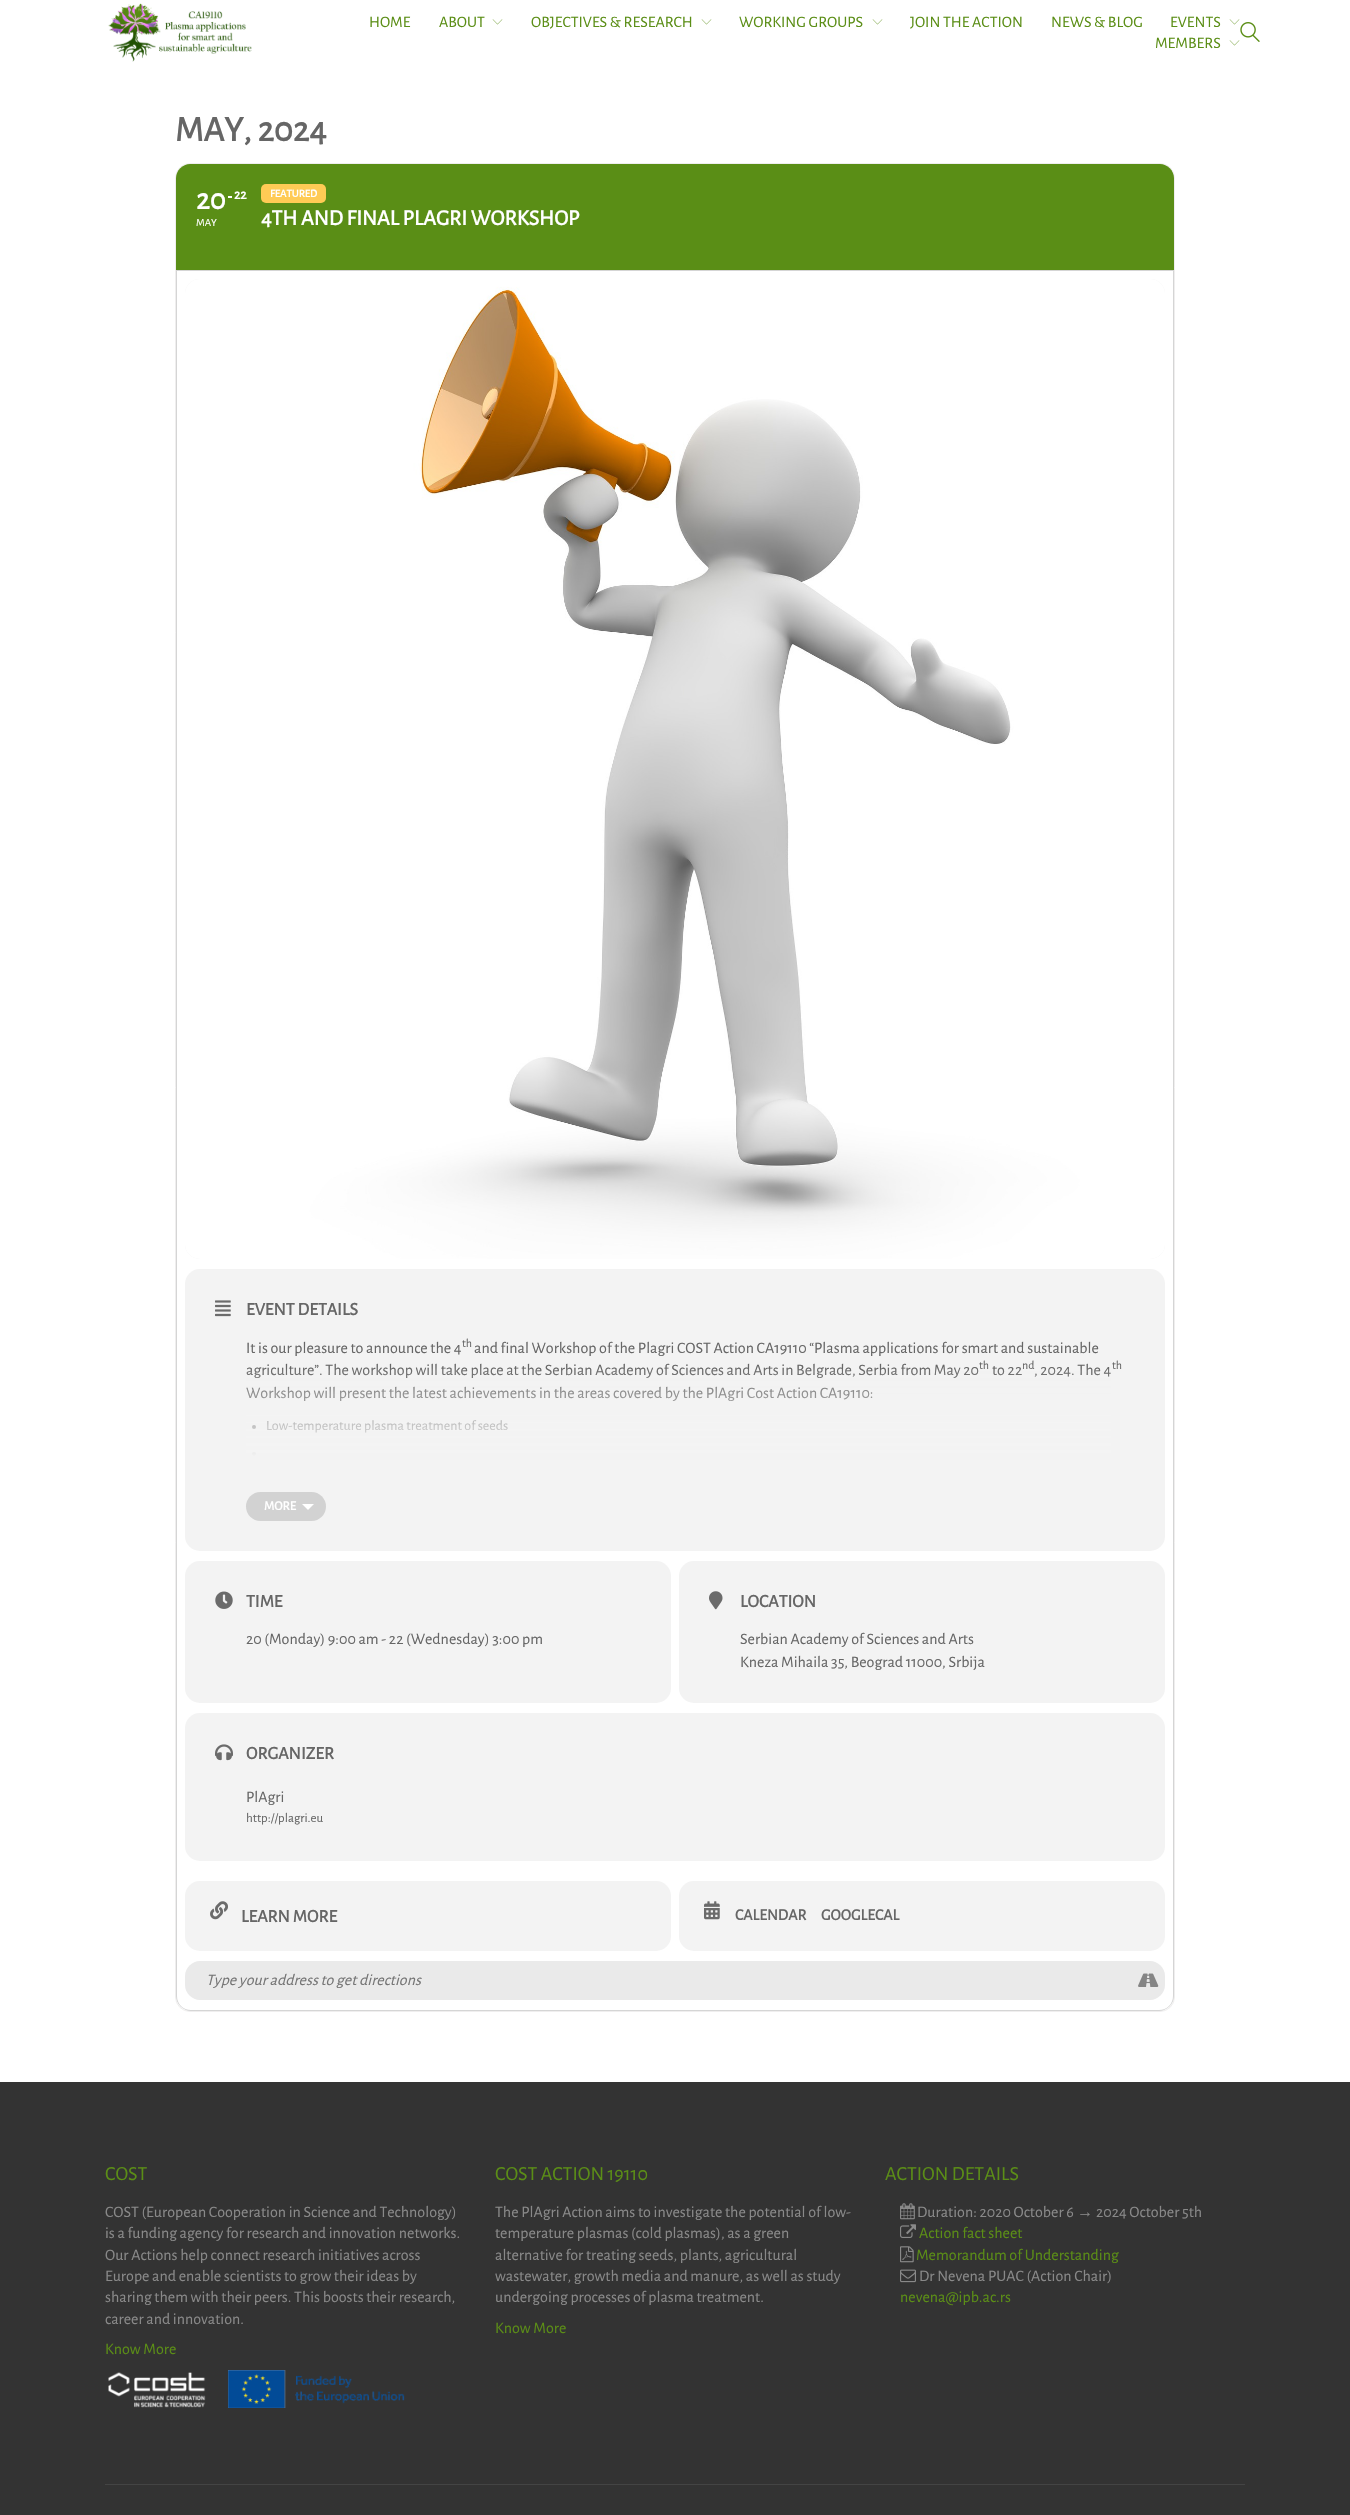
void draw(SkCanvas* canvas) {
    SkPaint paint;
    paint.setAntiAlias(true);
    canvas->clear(0xFFFFFFFF);
    canvas->drawImageRect(SkImages::DeferredFromEncodedData(SkData::MakeFromFileName("img1.png")), SkRect::MakeXYWH(108, 3, 144, 59), SkSamplingOptions());
    SkFont font1(fontMgr->matchFamilyStyle("Alegreya Sans", SkFontStyle::Normal()), 16);
    font1.setSubpixel(true);
    paint.setColor(0xFF5B8E16);
    canvas->drawString("HOME", 369, 27, font1, paint);
    canvas->drawString("ABOUT", 439, 27, font1, paint);
    canvas->drawImageRect(SkImages::DeferredFromEncodedData(SkData::MakeFromFileName("img2.png")), SkRect::MakeXYWH(492, 19, 11, 6), SkSamplingOptions());
    canvas->drawString("OBJECTIVES & RESEARCH", 531, 27, font1, paint);
    canvas->drawImageRect(SkImages::DeferredFromEncodedData(SkData::MakeFromFileName("img2.png")), SkRect::MakeXYWH(701, 19, 11, 6), SkSamplingOptions());
    canvas->drawString("WORKING GROUPS", 739, 27, font1, paint);
    canvas->drawImageRect(SkImages::DeferredFromEncodedData(SkData::MakeFromFileName("img2.png")), SkRect::MakeXYWH(872, 19, 11, 6), SkSamplingOptions());
    canvas->drawString("JOIN THE ACTION", 910, 27, font1, paint);
    canvas->drawString("NEWS & BLOG", 1051, 27, font1, paint);
    canvas->drawString("EVENTS", 1170, 27, font1, paint);
    canvas->drawImageRect(SkImages::DeferredFromEncodedData(SkData::MakeFromFileName("img2.png")), SkRect::MakeXYWH(1229, 19, 11, 6), SkSamplingOptions());
    canvas->drawString("MEMBERS", 1155, 48, font1, paint);
    canvas->drawImageRect(SkImages::DeferredFromEncodedData(SkData::MakeFromFileName("img2.png")), SkRect::MakeXYWH(1229, 40, 11, 6), SkSamplingOptions());
    canvas->drawImageRect(SkImages::DeferredFromEncodedData(SkData::MakeFromFileName("img3.png")), SkRect::MakeXYWH(1240, 22, 20, 20), SkSamplingOptions());
    SkFont font2(fontMgr->matchFamilyStyle("Alegreya Sans", SkFontStyle::Bold()), 36);
    font2.setSubpixel(true);
    paint.setColor(0xFF666666);
    canvas->drawString("MAY, 2024", 175, 141, font2, paint);
    paint.setStyle(SkPaint::kStroke_Style);
    paint.setStrokeWidth(1);
    paint.setColor(0xFFEFEEEE);
    canvas->drawRoundRect(SkRect::MakeXYWH(175.5f, 163.5f, 999, 1848), 14.5f, 14.5f, paint);
    paint.setStyle(SkPaint::kFill_Style);
    paint.setColor(0xFFD5D5D5);
    canvas->drawRect(SkRect::MakeXYWH(176, 270, 998, 1), paint);
    paint.setColor(0xFF5A8E16);
    canvas->drawPath(SkPathBuilder().moveTo(190, 164).lineTo(1160, 164).cubicTo(1167.5f, 164, 1174, 170.5f, 1174, 178).lineTo(1174, 270).lineTo(176, 270).lineTo(176, 178).cubicTo(176, 170.5f, 182.5f, 164, 190, 164).close().detach(), paint);
    SkFont font3(fontMgr->matchFamilyStyle("Alegreya Sans", SkFontStyle::Bold()), 30);
    font3.setSubpixel(true);
    paint.setColor(0xFFFFFFFF);
    canvas->drawString("20", 196, 209, font3, paint);
    SkFont font4(fontMgr->matchFamilyStyle("Alegreya Sans", SkFontStyle::Normal()), 11);
    font4.setSubpixel(true);
    canvas->drawString("MAY", 196, 226, font4, paint);
    canvas->drawRect(SkRect::MakeXYWH(228, 196, 4, 2), paint);
    SkFont font5(fontMgr->matchFamilyStyle("Alegreya Sans", SkFontStyle::Bold()), 14);
    font5.setSubpixel(true);
    canvas->drawString("22", 234, 199, font5, paint);
    paint.setColor(0xFFFFCB55);
    canvas->drawRoundRect(SkRect::MakeXYWH(261, 184, 65, 19), 5, 5, paint);
    SkFont font6(fontMgr->matchFamilyStyle("Alegreya Sans", SkFontStyle::Bold()), 11);
    font6.setSubpixel(true);
    paint.setColor(0xFFFFFFFF);
    canvas->drawString("FEATURED", 270, 197, font6, paint);
    SkFont font7(fontMgr->matchFamilyStyle("Alegreya Sans", SkFontStyle::Bold()), 22);
    font7.setSubpixel(true);
    canvas->drawString("4TH AND FINAL PLAGRI WORKSHOP", 261, 225, font7, paint);
    paint.setColor(0xFFD5D5D5);
    canvas->drawPath(SkPathBuilder(SkPathFillType::kEvenOdd).moveTo(176, 271).lineTo(1174, 271).lineTo(1174, 1996).cubicTo(1174, 2004, 1167, 2011, 1159, 2011).lineTo(191, 2011).cubicTo(183, 2011, 176, 2004, 176, 1996).close().moveTo(177, 271).lineTo(1173, 271).lineTo(1173, 1996).cubicTo(1173, 2004, 1167, 2010, 1159, 2010).lineTo(191, 2010).cubicTo(183, 2010, 177, 2004, 177, 1996).close().detach(), paint);
    paint.setColor(0xFFF3F3F3);
    canvas->drawRoundRect(SkRect::MakeXYWH(185, 279, 980, 980), 15, 15, paint);
    canvas->drawImageRect(SkImages::DeferredFromEncodedData(SkData::MakeFromFileName("img4.png")), SkRect::MakeXYWH(185, 279, 980, 980), SkSamplingOptions());
    canvas->drawRoundRect(SkRect::MakeXYWH(185, 1269, 980, 282), 15, 15, paint);
    canvas->drawImageRect(SkImages::DeferredFromEncodedData(SkData::MakeFromFileName("img5.png")), SkRect::MakeXYWH(215, 1300, 16, 17), SkSamplingOptions());
    SkFont font8(fontMgr->matchFamilyStyle("Alegreya Sans", SkFontStyle::Bold()), 18);
    font8.setSubpixel(true);
    paint.setColor(0xFF666666);
    canvas->drawString("EVENT DETAILS", 246, 1315, font8, paint);
    canvas->drawString("It is our pleasure to announce the 4", 246, 1353, font1, paint);
    SkFont font9(fontMgr->matchFamilyStyle("Alegreya Sans", SkFontStyle::Normal()), 12);
    font9.setSubpixel(true);
    canvas->drawString("th", 462, 1347, font9, paint);
    canvas->drawString("and final Workshop of the Plagri COST Action CA19110 “Plasma applications for smart and sustainable", 474, 1353, font1, paint);
    canvas->drawString("agriculture”. The workshop will take place at the Serbian Academy of Sciences and Arts in Belgrade, Serbia from May 20", 246, 1375, font1, paint);
    canvas->drawString("th", 979, 1369, font9, paint);
    canvas->drawString("to 22", 992, 1375, font1, paint);
    canvas->drawString("nd", 1022, 1369, font9, paint);
    canvas->drawString(", 2024. The 4", 1034, 1375, font1, paint);
    canvas->drawString("th", 1112, 1369, font9, paint);
    canvas->drawString("Workshop will present the latest achievements in the areas covered by the PlAgri Cost Action CA19110:", 246, 1398, font1, paint);
    paint.setColor(0xFF656565);
    canvas->drawCircle(254, 1427, 2, paint);
    SkFont font10(fontMgr->matchFamilyStyle("Alegreya Sans", SkFontStyle::Normal()), 14);
    font10.setSubpixel(true);
    paint.setColor(0xFF666666);
    canvas->drawString("Low-temperature plasma treatment of seeds", 266, 1430, font10, paint);
    paint.setColor(0xFF656565);
    canvas->drawCircle(254, 1454, 2, paint);
    {
        const SkColor colors[] = {0xFFF3F3F3, 0x00F3F3F3};
        const float stops[] = {0.2f, 0.8f};
        const SkPoint ends[] = {{691, 1487}, {691, 1337}};
        paint.setShader(SkGradientShader::MakeLinear(ends, colors, stops, 2, SkTileMode::kClamp));
        paint.setAlpha(255);
    }
    canvas->drawRect(SkRect::MakeXYWH(246, 1369, 865, 87), paint);
    paint.setShader(nullptr);
    paint.setColor(0xFFD2D2D2);
    canvas->drawRoundRect(SkRect::MakeXYWH(246, 1492, 80, 29), 14.5f, 14.5f, paint);
    SkFont font11(fontMgr->matchFamilyStyle("Alegreya Sans", SkFontStyle::Bold()), 13);
    font11.setSubpixel(true);
    paint.setColor(0xFFFFFFFF);
    canvas->drawString("MORE", 264, 1510, font11, paint);
    canvas->drawPath(SkPathBuilder().moveTo(302, 1504).lineTo(314, 1504).lineTo(308, 1510).close().detach(), paint);
    paint.setColor(0xFFF3F3F3);
    canvas->drawRoundRect(SkRect::MakeXYWH(185, 1561, 486, 142), 15, 15, paint);
    canvas->drawImageRect(SkImages::DeferredFromEncodedData(SkData::MakeFromFileName("img6.png")), SkRect::MakeXYWH(215, 1591, 18, 18), SkSamplingOptions());
    paint.setColor(0xFF666666);
    canvas->drawString("TIME", 246, 1607, font8, paint);
    canvas->drawString("20 (Monday) 9:00 am - 22 (Wednesday) 3:00 pm", 246, 1644, font1, paint);
    paint.setColor(0xFFF3F3F3);
    canvas->drawRoundRect(SkRect::MakeXYWH(679, 1561, 486, 142), 15, 15, paint);
    canvas->drawImageRect(SkImages::DeferredFromEncodedData(SkData::MakeFromFileName("img7.png")), SkRect::MakeXYWH(709, 1591, 14, 19), SkSamplingOptions());
    paint.setColor(0xFF666666);
    canvas->drawString("LOCATION", 740, 1607, font8, paint);
    canvas->drawString("Serbian Academy of Sciences and Arts", 740, 1644, font1, paint);
    canvas->drawString("Kneza Mihaila 35, Beograd 11000, Srbija", 740, 1667, font1, paint);
    paint.setColor(0xFFF3F3F3);
    canvas->drawRoundRect(SkRect::MakeXYWH(185, 1713, 980, 148), 15, 15, paint);
    canvas->drawImageRect(SkImages::DeferredFromEncodedData(SkData::MakeFromFileName("img8.png")), SkRect::MakeXYWH(215, 1744, 18, 17), SkSamplingOptions());
    paint.setColor(0xFF666666);
    canvas->drawString("ORGANIZER", 246, 1759, font8, paint);
    canvas->drawString("PlAgri", 246, 1802, font1, paint);
    SkFont font12(fontMgr->matchFamilyStyle("Alegreya Sans", SkFontStyle::Normal()), 13);
    font12.setSubpixel(true);
    canvas->drawString("http://plagri.eu", 246, 1822, font12, paint);
    paint.setColor(0xFFF3F3F3);
    canvas->drawRoundRect(SkRect::MakeXYWH(185, 1881, 486, 70), 15, 15, paint);
    canvas->drawImageRect(SkImages::DeferredFromEncodedData(SkData::MakeFromFileName("img9.png")), SkRect::MakeXYWH(210, 1901, 18, 19), SkSamplingOptions());
    paint.setColor(0xFF666666);
    canvas->drawString("LEARN MORE", 241, 1922, font8, paint);
    paint.setColor(0xFFF3F3F3);
    canvas->drawRoundRect(SkRect::MakeXYWH(679, 1881, 486, 70), 15, 15, paint);
    canvas->drawImageRect(SkImages::DeferredFromEncodedData(SkData::MakeFromFileName("img10.png")), SkRect::MakeXYWH(704, 1901, 16, 19), SkSamplingOptions());
    SkFont font13(fontMgr->matchFamilyStyle("Alegreya Sans", SkFontStyle::Bold()), 16);
    font13.setSubpixel(true);
    paint.setColor(0xFF666666);
    canvas->drawString("CALENDAR", 735, 1920, font13, paint);
    canvas->drawString("GOOGLECAL", 821, 1920, font13, paint);
    paint.setColor(0xFFEAEAEA);
    canvas->drawPath(SkPathBuilder().moveTo(200, 1961).cubicTo(192, 1961, 185, 1968, 185, 1976).lineTo(185, 1985).cubicTo(185, 1993, 192, 2000, 200, 2000).lineTo(1150, 2000).cubicTo(1158, 2000, 1165, 1993, 1165, 1985).lineTo(1165, 1976).cubicTo(1165, 1968, 1158, 1961, 1150, 1961).close().detach(), paint);
    SkFont font14(fontMgr->matchFamilyStyle("Alegreya Sans", SkFontStyle::Italic()), 16);
    font14.setSubpixel(true);
    paint.setColor(0xFF757575);
    canvas->drawString("Type your address to get directions", 206, 1985, font14, paint);
    canvas->drawImageRect(SkImages::DeferredFromEncodedData(SkData::MakeFromFileName("img11.png")), SkRect::MakeXYWH(1138, 1973, 21, 14), SkSamplingOptions());
    paint.setColor(0xFF333333);
    canvas->drawRect(SkRect::MakeXYWH(0, 2082, 1350, 433), paint);
    SkFont font15(fontMgr->matchFamilyStyle("Alegreya Sans", SkFontStyle::Normal()), 20);
    font15.setSubpixel(true);
    paint.setColor(0xFF5B8E16);
    canvas->drawString("COST", 105, 2180, font15, paint);
    paint.setColor(0xFF898989);
    canvas->drawString("COST (European Cooperation in Science and Technology)", 105, 2217, font1, paint);
    canvas->drawString("is a funding agency for research and innovation networks.", 105, 2238, font1, paint);
    canvas->drawString("Our Actions help connect research initiatives across", 105, 2260, font1, paint);
    canvas->drawString("Europe and enable scientists to grow their ideas by", 105, 2281, font1, paint);
    canvas->drawString("sharing them with their peers. This boosts their research,", 105, 2302, font1, paint);
    canvas->drawString("career and innovation.", 105, 2324, font1, paint);
    paint.setColor(0xFF5B8E16);
    canvas->drawString("Know More", 105, 2354, font1, paint);
    canvas->drawImageRect(SkImages::DeferredFromEncodedData(SkData::MakeFromFileName("img12.png")), SkRect::MakeXYWH(108, 2370, 297, 38), SkSamplingOptions());
    canvas->drawString("COST ACTION 19110", 495, 2180, font15, paint);
    paint.setColor(0xFF898989);
    canvas->drawString("The PlAgri Action aims to investigate the potential of low-", 495, 2217, font1, paint);
    canvas->drawString("temperature plasmas (cold plasmas), as a green", 495, 2238, font1, paint);
    canvas->drawString("alternative for treating seeds, plants, agricultural", 495, 2260, font1, paint);
    canvas->drawString("wastewater, growth media and manure, as well as study", 495, 2281, font1, paint);
    canvas->drawString("undergoing processes of plasma treatment.", 495, 2302, font1, paint);
    paint.setColor(0xFF5B8E16);
    canvas->drawString("Know More", 495, 2333, font1, paint);
    canvas->drawString("ACTION DETAILS", 885, 2180, font15, paint);
    canvas->drawImageRect(SkImages::DeferredFromEncodedData(SkData::MakeFromFileName("img13.png")), SkRect::MakeXYWH(900, 2203, 15, 17), SkSamplingOptions());
    paint.setColor(0xFF898989);
    canvas->drawString("Duration: 2020 October 6", 917, 2217, font1, paint);
    SkFont font16(fontMgr->matchFamilyStyle("Liberation Serif", SkFontStyle::Normal()), 16);
    font16.setSubpixel(true);
    canvas->drawString("→", 1077, 2217, font16, paint);
    canvas->drawString("2024 October 5th", 1096, 2217, font1, paint);
    canvas->drawImageRect(SkImages::DeferredFromEncodedData(SkData::MakeFromFileName("img14.png")), SkRect::MakeXYWH(900, 2224, 16, 14), SkSamplingOptions());
    paint.setColor(0xFF5B8E16);
    canvas->drawString("Action fact sheet", 919, 2238, font1, paint);
    canvas->drawImageRect(SkImages::DeferredFromEncodedData(SkData::MakeFromFileName("img15.png")), SkRect::MakeXYWH(900, 2246, 14, 17), SkSamplingOptions());
    canvas->drawString("Memorandum of Understanding", 916, 2260, font1, paint);
    canvas->drawImageRect(SkImages::DeferredFromEncodedData(SkData::MakeFromFileName("img16.png")), SkRect::MakeXYWH(900, 2269, 16, 14), SkSamplingOptions());
    paint.setColor(0xFF898989);
    canvas->drawString("Dr Nevena PUAC (Action Chair)", 919, 2281, font1, paint);
    paint.setColor(0xFF5B8E16);
    canvas->drawString("nevena@ipb.ac.rs", 900, 2302, font1, paint);
    paint.setColor(0xFF444444);
    canvas->drawRect(SkRect::MakeXYWH(105, 2484, 1140, 1), paint);
}
